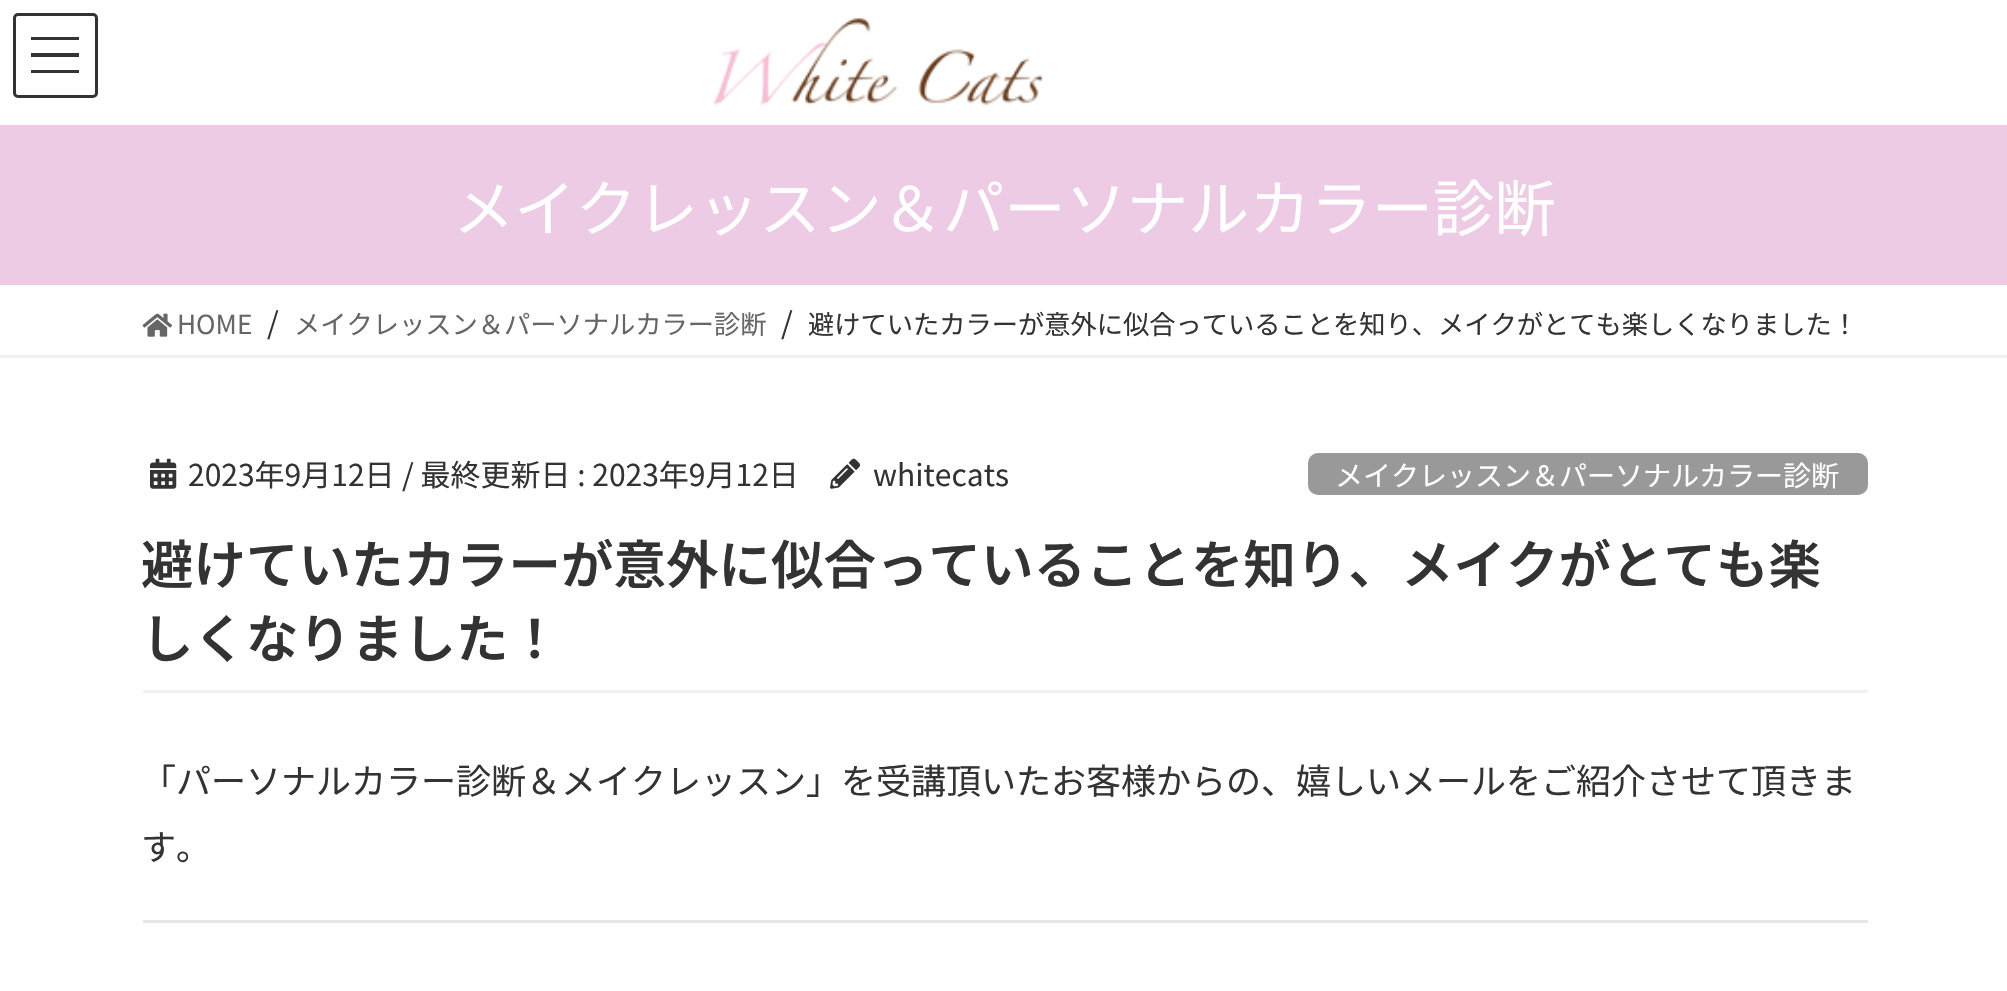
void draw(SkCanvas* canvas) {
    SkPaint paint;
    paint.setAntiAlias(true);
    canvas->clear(0xFFFFFFFF);
    paint.setColor(0xFF333333);
    canvas->drawRect(SkRect::MakeXYWH(31, 37, 48, 3), paint);
    canvas->drawRect(SkRect::MakeXYWH(31, 53, 48, 4), paint);
    canvas->drawRect(SkRect::MakeXYWH(31, 70, 48, 3), paint);
    paint.setStyle(SkPaint::kStroke_Style);
    paint.setStrokeWidth(3);
    canvas->drawRoundRect(SkRect::MakeXYWH(14.5f, 14.5f, 82, 82), 3.5f, 3.5f, paint);
    canvas->drawImageRect(SkImages::DeferredFromEncodedData(SkData::MakeFromFileName("img1.png")), SkRect::MakeXYWH(713, 18, 330, 88), SkSamplingOptions());
    paint.setStyle(SkPaint::kFill_Style);
    paint.setColor(0xFFEDCBE4);
    canvas->drawRect(SkRect::MakeXYWH(0, 125, 2007, 160), paint);
    SkFont font1(fontMgr->matchFamilyStyle("Noto Sans JP", SkFontStyle::Normal()), 61.25f);
    font1.setSubpixel(true);
    paint.setColor(0xFFFFFFFF);
    canvas->drawString("メイクレッスン＆パーソナルカラー診断", 453, 231, font1, paint);
    paint.setColor(0xFFF2F2F2);
    canvas->drawRect(SkRect::MakeXYWH(0, 355, 2007, 3), paint);
    canvas->drawImageRect(SkImages::DeferredFromEncodedData(SkData::MakeFromFileName("img2.png")), SkRect::MakeXYWH(142, 313, 30, 24), SkSamplingOptions());
    SkFont font2(fontMgr->matchFamilyStyle("Noto Sans JP", SkFontStyle::Normal()), 26.25f);
    font2.setSubpixel(true);
    paint.setColor(0xFF666666);
    canvas->drawString("HOME", 177, 334, font2, paint);
    SkFont font3(fontMgr->matchFamilyStyle("Noto Sans JP", SkFontStyle::Normal()), 30);
    font3.setSubpixel(true);
    paint.setColor(0xFF333333);
    canvas->drawString("/", 267, 334, font3, paint);
    paint.setColor(0xFF666666);
    canvas->drawString("メイクレッスン＆パーソナルカラー診断", 294, 334, font2, paint);
    paint.setColor(0xFF333333);
    canvas->drawString("/", 781, 334, font3, paint);
    canvas->drawString("避けていたカラーが意外に似合っていることを知り、メイクがとても楽しくなりました！", 808, 334, font2, paint);
    paint.setColor(0xFFF2F2F2);
    canvas->drawRect(SkRect::MakeXYWH(143, 690, 1725, 3), paint);
    canvas->drawImageRect(SkImages::DeferredFromEncodedData(SkData::MakeFromFileName("img3.png")), SkRect::MakeXYWH(150, 458, 27, 31), SkSamplingOptions());
    paint.setColor(0xFF333333);
    canvas->drawString("2023年9月12日", 188, 486, font3, paint);
    canvas->drawString("/ 最終更新日 : 2023年9月12日", 402, 486, font3, paint);
    canvas->drawImageRect(SkImages::DeferredFromEncodedData(SkData::MakeFromFileName("img4.png")), SkRect::MakeXYWH(830, 458, 30, 31), SkSamplingOptions());
    canvas->drawString("whitecats", 873, 486, font3, paint);
    paint.setColor(0xFF999999);
    canvas->drawRoundRect(SkRect::MakeXYWH(1308, 453, 560, 42), 10, 10, paint);
    SkFont font4(fontMgr->matchFamilyStyle("Noto Sans JP", SkFontStyle::Normal()), 28);
    font4.setSubpixel(true);
    paint.setColor(0xFFFFFFFF);
    canvas->drawString("メイクレッスン＆パーソナルカラー診断", 1335, 486, font4, paint);
    SkFont font5(fontMgr->matchFamilyStyle("Noto Sans JP", SkFontStyle(600, SkFontStyle::kNormal_Width, SkFontStyle::kUpright_Slant)), 52.5f);
    font5.setSubpixel(true);
    paint.setColor(0xFF333333);
    canvas->drawString("避けていたカラーが意外に似合っていることを知り、メイクがとても楽", 141, 584, font5, paint);
    canvas->drawString("しくなりました！", 141, 658, font5, paint);
    SkFont font6(fontMgr->matchFamilyStyle("Noto Sans JP", SkFontStyle::Normal()), 35);
    font6.setSubpixel(true);
    canvas->drawString("「パーソナルカラー診断＆メイクレッスン」を受講頂いたお客様からの、嬉しいメールをご紹介させて頂きま", 141, 794, font6, paint);
    canvas->drawString("す。", 141, 860, font6, paint);
    paint.setColor(0xFFE6E6E6);
    canvas->drawRect(SkRect::MakeXYWH(143, 920, 1725, 3), paint);
}
